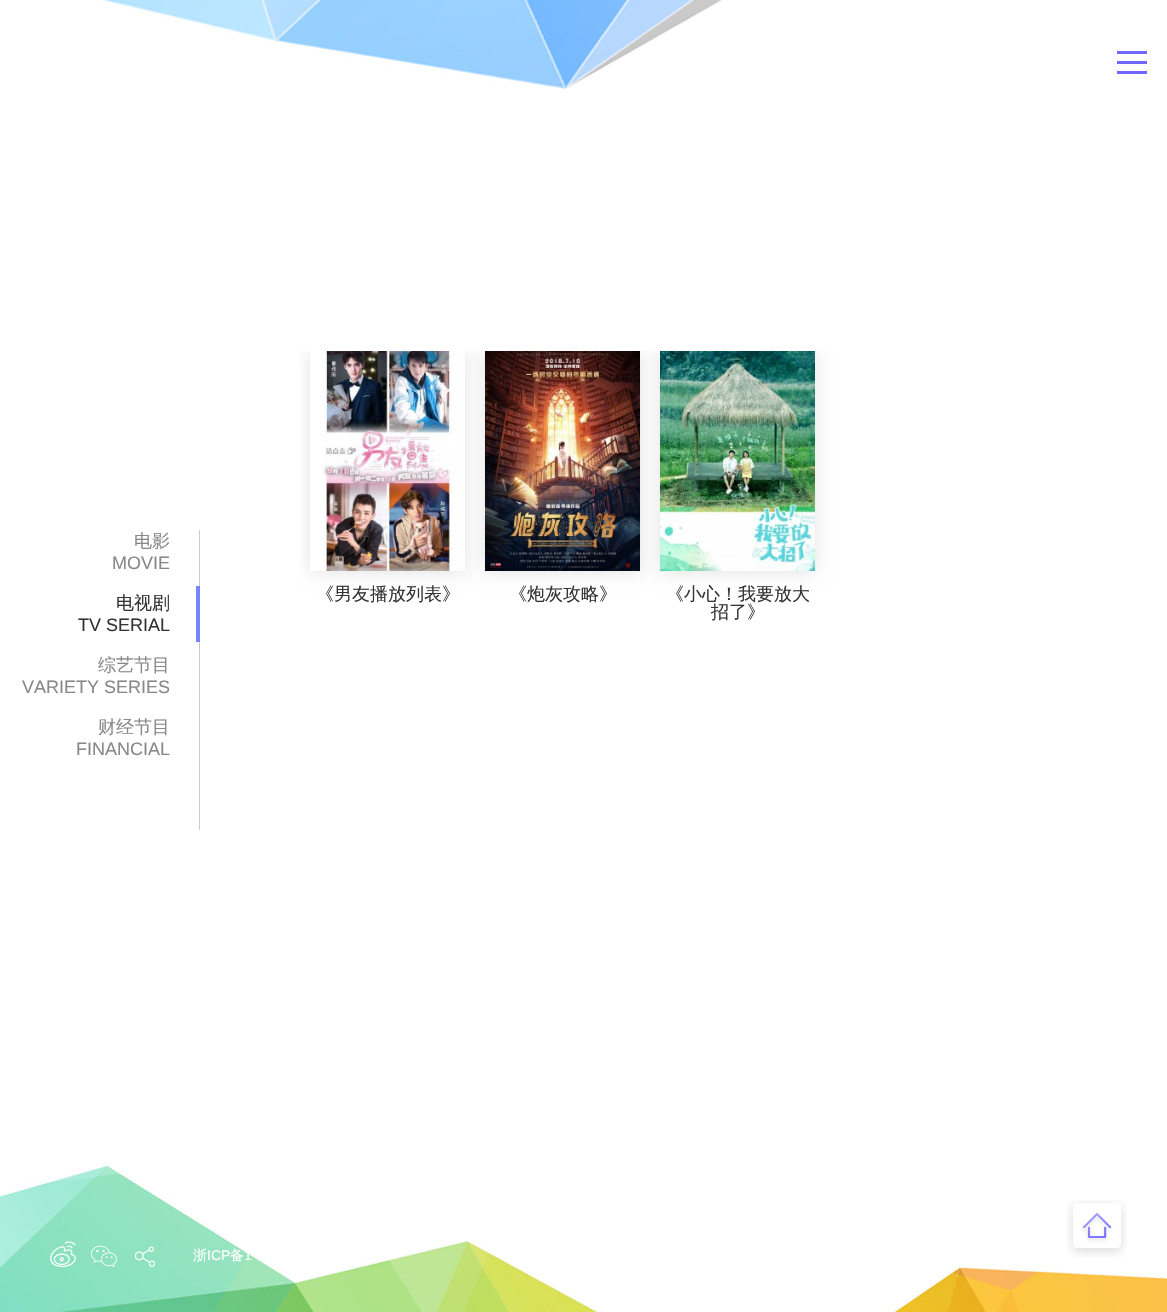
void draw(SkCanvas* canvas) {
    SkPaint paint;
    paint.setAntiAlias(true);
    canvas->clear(0xFFFFFFFF);
    canvas->drawImageRect(SkImages::DeferredFromEncodedData(SkData::MakeFromFileName("img1.png")), SkRect::MakeXYWH(102, 0, 620, 96), SkSamplingOptions());
    paint.setColor(0xFF7068FB);
    canvas->drawRect(SkRect::MakeXYWH(1117, 51, 30, 3), paint);
    canvas->drawRect(SkRect::MakeXYWH(1117, 61, 30, 3), paint);
    canvas->drawRect(SkRect::MakeXYWH(1117, 71, 30, 3), paint);
    paint.setColor(0xFFCCCCCC);
    canvas->drawRect(SkRect::MakeXYWH(199, 530, 1, 300), paint);
    SkFont font1(fontMgr->matchFamilyStyle("WenQuanYi Zen Hei", SkFontStyle(500, SkFontStyle::kNormal_Width, SkFontStyle::kUpright_Slant)), 18);
    font1.setSubpixel(true);
    paint.setColor(0xFF888888);
    canvas->drawString("电影", 134, 547, font1, paint);
    SkFont font2(fontMgr->matchFamilyStyle("Liberation Sans", SkFontStyle::Normal()), 18);
    font2.setSubpixel(true);
    canvas->drawString("MOVIE", 112, 569, font2, paint);
    paint.setColor(0xFF333333);
    canvas->drawString("电视剧", 116, 609, font1, paint);
    paint.setColor(0xFF7984FF);
    canvas->drawRect(SkRect::MakeXYWH(196, 586, 4, 56), paint);
    paint.setColor(0xFF333333);
    canvas->drawString("TV SERIAL", 78, 631, font2, paint);
    paint.setColor(0xFF888888);
    canvas->drawString("综艺节目", 98, 671, font1, paint);
    canvas->drawString("VARIETY SERIES", 22, 693, font2, paint);
    canvas->drawString("财经节目", 98, 733, font1, paint);
    canvas->drawString("FINANCIAL", 76, 755, font2, paint);
    canvas->save();
    canvas->clipRect(SkRect::MakeXYWH(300, 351, 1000, 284));
    canvas->clipPath(SkPathBuilder(SkPathFillType::kEvenOdd).moveTo(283, 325).lineTo(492, 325).lineTo(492, 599).lineTo(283, 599).close().moveTo(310, 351).lineTo(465, 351).lineTo(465, 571).lineTo(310, 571).close().detach(), true);
    paint.setColor(0x1C000000);
    paint.setMaskFilter(SkMaskFilter::MakeBlur(kNormal_SkBlurStyle, 8.5f));
    canvas->drawRect(SkRect::MakeXYWH(310, 352, 155, 220), paint);
    paint.setMaskFilter(nullptr);
    canvas->restore();
    canvas->drawImageRect(SkImages::DeferredFromEncodedData(SkData::MakeFromFileName("img2.png")), SkRect::MakeXYWH(323, 351, 137, 220), SkSamplingOptions());
    paint.setColor(0xFF333333);
    canvas->drawString("《男友播放列表》", 316, 600, font1, paint);
    canvas->save();
    canvas->clipRect(SkRect::MakeXYWH(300, 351, 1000, 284));
    paint.setColor(0x1C000000);
    paint.setMaskFilter(SkMaskFilter::MakeBlur(kNormal_SkBlurStyle, 8.5f));
    canvas->drawRect(SkRect::MakeXYWH(485, 352, 155, 220), paint);
    paint.setMaskFilter(nullptr);
    canvas->restore();
    canvas->drawImageRect(SkImages::DeferredFromEncodedData(SkData::MakeFromFileName("img3.png")), SkRect::MakeXYWH(485, 351, 155, 220), SkSamplingOptions());
    paint.setColor(0xFF333333);
    canvas->drawString("《炮灰攻略》", 509, 600, font1, paint);
    canvas->save();
    canvas->clipRect(SkRect::MakeXYWH(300, 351, 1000, 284));
    paint.setColor(0x1C000000);
    paint.setMaskFilter(SkMaskFilter::MakeBlur(kNormal_SkBlurStyle, 8.5f));
    canvas->drawRect(SkRect::MakeXYWH(660, 352, 155, 220), paint);
    paint.setMaskFilter(nullptr);
    canvas->restore();
    canvas->drawImageRect(SkImages::DeferredFromEncodedData(SkData::MakeFromFileName("img4.png")), SkRect::MakeXYWH(660, 351, 155, 220), SkSamplingOptions());
    paint.setColor(0xFF333333);
    canvas->drawString("《小心！我要放大", 666, 600, font1, paint);
    canvas->drawString("招了》", 711, 618, font1, paint);
    canvas->drawImageRect(SkImages::DeferredFromEncodedData(SkData::MakeFromFileName("img5.png")), SkRect::MakeXYWH(0, 1161, 1167, 151), SkSamplingOptions());
    canvas->drawImageRect(SkImages::DeferredFromEncodedData(SkData::MakeFromFileName("img6.png")), SkRect::MakeXYWH(50, 1241, 26, 27), SkSamplingOptions());
    canvas->drawImageRect(SkImages::DeferredFromEncodedData(SkData::MakeFromFileName("img7.png")), SkRect::MakeXYWH(91, 1245, 26, 22), SkSamplingOptions());
    canvas->drawImageRect(SkImages::DeferredFromEncodedData(SkData::MakeFromFileName("img8.png")), SkRect::MakeXYWH(134, 1246, 22, 21), SkSamplingOptions());
    SkFont font3(fontMgr->matchFamilyStyle("WenQuanYi Zen Hei", SkFontStyle(500, SkFontStyle::kNormal_Width, SkFontStyle::kUpright_Slant)), 14);
    font3.setSubpixel(true);
    paint.setColor(0xFFFFFFFF);
    canvas->drawString("浙", 193, 1260, font3, paint);
    SkFont font4(fontMgr->matchFamilyStyle("Liberation Sans", SkFontStyle::Normal()), 14);
    font4.setSubpixel(true);
    canvas->drawString("ICP", 207, 1260, font4, paint);
    canvas->drawString("备", 230, 1260, font3, paint);
    canvas->drawString("1", 244, 1260, font4, paint);
    canvas->drawImageRect(SkImages::DeferredFromEncodedData(SkData::MakeFromFileName("img9.png")), SkRect::MakeXYWH(1067, 1200, 60, 57), SkSamplingOptions());
}
